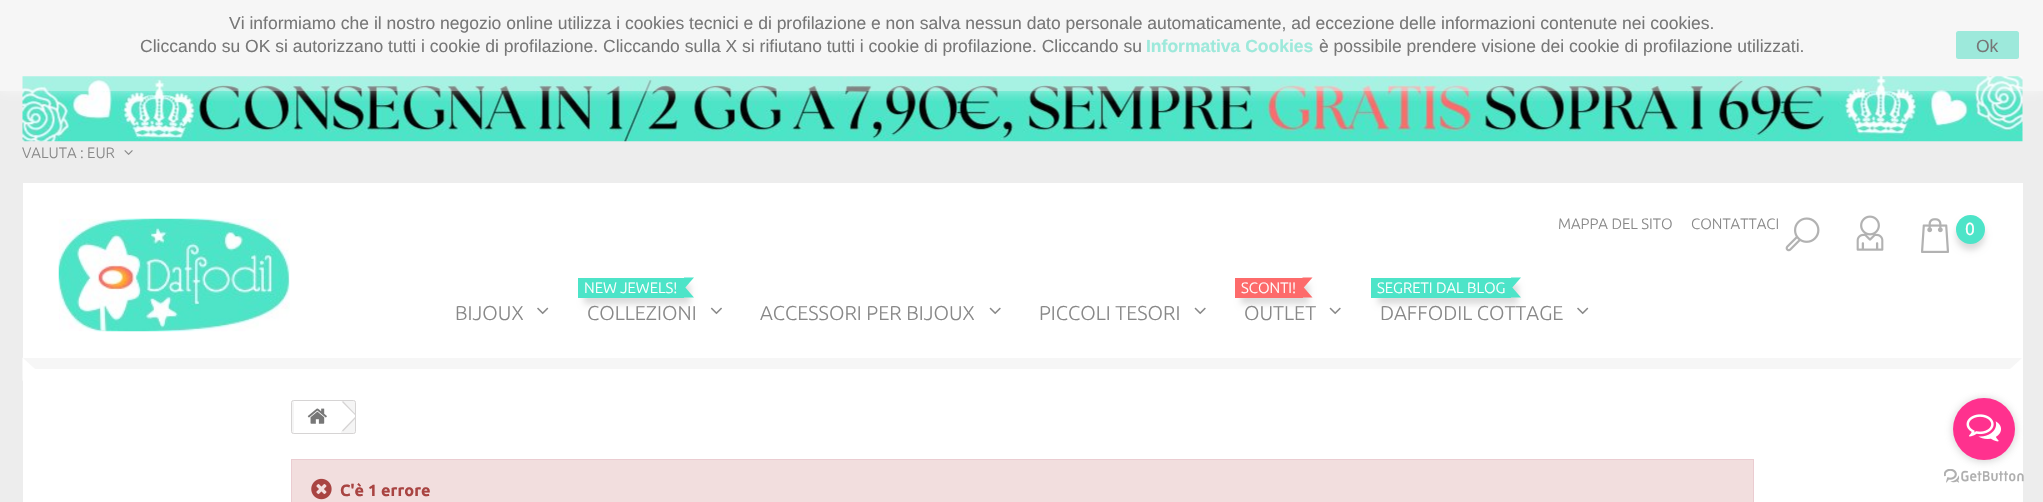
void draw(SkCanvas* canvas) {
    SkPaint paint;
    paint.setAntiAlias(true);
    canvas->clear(0xFFEDEDED);
    canvas->drawImageRect(SkImages::DeferredFromEncodedData(SkData::MakeFromFileName("img1.png")), SkRect::MakeXYWH(22, 76, 2001, 66), SkSamplingOptions());
    SkFont font1(fontMgr->matchFamilyStyle("Ubuntu", SkFontStyle(300, SkFontStyle::kNormal_Width, SkFontStyle::kUpright_Slant)), 15);
    font1.setSubpixel(true);
    paint.setColor(0xFF888888);
    canvas->drawString("VALUTA : EUR", 22, 158, font1, paint);
    canvas->drawImageRect(SkImages::DeferredFromEncodedData(SkData::MakeFromFileName("img2.png")), SkRect::MakeXYWH(124, 150, 9, 5), SkSamplingOptions());
    paint.setColor(0xFFFFFFFF);
    canvas->drawRect(SkRect::MakeXYWH(23, 183, 2000, 319), paint);
    canvas->save();
    canvas->clipRect(SkRect::MakeXYWH(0, 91, 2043, 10));
    paint.setColor(0x80FFFFFF);
    paint.setMaskFilter(SkMaskFilter::MakeBlur(kNormal_SkBlurStyle, 6));
    canvas->drawRect(SkRect::MakeXYWH(0, 0, 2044, 91), paint);
    paint.setMaskFilter(nullptr);
    canvas->restore();
    canvas->drawRect(SkRect::MakeXYWH(0, 0, 2043, 91), paint);
    SkFont font2(fontMgr->matchFamilyStyle("Liberation Sans", SkFontStyle::Normal()), 17.5f);
    font2.setSubpixel(true);
    paint.setColor(0xFF777777);
    canvas->drawString("Vi informiamo che il nostro negozio online utilizza i cookies tecnici e di profilazione e non salva nessun dato personale automaticamente, ad eccezione delle informazioni contenute nei cookies.", 229, 29, font2, paint);
    canvas->drawString("Cliccando su OK si autorizzano tutti i cookie di profilazione. Cliccando sulla X si rifiutano tutti i cookie di profilazione. Cliccando su", 140, 52, font2, paint);
    SkFont font3(fontMgr->matchFamilyStyle("Liberation Sans", SkFontStyle::Bold()), 17.5f);
    font3.setSubpixel(true);
    paint.setColor(0xFF9DE9DB);
    canvas->drawString("Informativa Cookies", 1146, 52, font3, paint);
    paint.setColor(0xFF777777);
    canvas->drawString("è possibile prendere visione dei cookie di profilazione utilizzati.", 1319, 52, font2, paint);
    paint.setColor(0xFF9DE9DB);
    canvas->drawRoundRect(SkRect::MakeXYWH(1956, 31, 63, 28), 2.5f, 2.5f, paint);
    paint.setColor(0xFF777777);
    canvas->drawString("Ok", 1976, 52, font2, paint);
    canvas->drawImageRect(SkImages::DeferredFromEncodedData(SkData::MakeFromFileName("img3.png")), SkRect::MakeXYWH(58, 218, 232, 114), SkSamplingOptions());
    paint.setColor(0xFF888888);
    canvas->drawString("MAPPA DEL SITO", 1558, 229, font1, paint);
    canvas->drawString("CONTATTACI", 1691, 229, font1, paint);
    canvas->drawImageRect(SkImages::DeferredFromEncodedData(SkData::MakeFromFileName("img4.png")), SkRect::MakeXYWH(1785, 217, 35, 35), SkSamplingOptions());
    canvas->drawImageRect(SkImages::DeferredFromEncodedData(SkData::MakeFromFileName("img5.png")), SkRect::MakeXYWH(1856, 215, 28, 36), SkSamplingOptions());
    canvas->drawImageRect(SkImages::DeferredFromEncodedData(SkData::MakeFromFileName("img6.png")), SkRect::MakeXYWH(1921, 218, 28, 35), SkSamplingOptions());
    paint.setColor(0x24000000);
    paint.setMaskFilter(SkMaskFilter::MakeBlur(kNormal_SkBlurStyle, 3));
    canvas->drawRoundRect(SkRect::MakeXYWH(1956, 221, 29, 29), 14.5f, 14.5f, paint);
    paint.setMaskFilter(nullptr);
    paint.setColor(0xFF4DE4C8);
    canvas->drawCircle(1970.5f, 229.5f, 14.5f, paint);
    SkFont font4(fontMgr->matchFamilyStyle("Ubuntu", SkFontStyle::Normal()), 17.5f);
    font4.setSubpixel(true);
    paint.setColor(0xFFFFFFFF);
    canvas->drawString("0", 1965, 235, font4, paint);
    SkFont font5(fontMgr->matchFamilyStyle("Ubuntu", SkFontStyle(300, SkFontStyle::kNormal_Width, SkFontStyle::kUpright_Slant)), 20);
    font5.setSubpixel(true);
    paint.setColor(0xFF888888);
    canvas->drawString("BIJOUX", 455, 320, font5, paint);
    canvas->drawImageRect(SkImages::DeferredFromEncodedData(SkData::MakeFromFileName("img7.png")), SkRect::MakeXYWH(537, 307, 12, 8), SkSamplingOptions());
    paint.setColor(0x24000000);
    paint.setMaskFilter(SkMaskFilter::MakeBlur(kNormal_SkBlurStyle, 3));
    canvas->drawRect(SkRect::MakeXYWH(584, 284, 106, 20), paint);
    paint.setMaskFilter(nullptr);
    paint.setColor(0xFF4DE4C8);
    canvas->drawRect(SkRect::MakeXYWH(578, 278, 106, 20), paint);
    paint.setColor(0xFFFFFFFF);
    canvas->drawString("NEW JEWELS!", 584, 293, font1, paint);
    paint.setColor(0xFF4DE4C8);
    canvas->drawPath(SkPathBuilder().moveTo(684, 297.5f).lineTo(684, 286).lineTo(694, 297.5f).close().detach(), paint);
    canvas->drawPath(SkPathBuilder().moveTo(684, 277.5f).lineTo(694, 277.5f).lineTo(684, 289).close().detach(), paint);
    paint.setColor(0xFF888888);
    canvas->drawString("COLLEZIONI", 587, 320, font5, paint);
    canvas->drawImageRect(SkImages::DeferredFromEncodedData(SkData::MakeFromFileName("img8.png")), SkRect::MakeXYWH(710, 307, 12, 8), SkSamplingOptions());
    canvas->drawString("ACCESSORI PER BIJOUX", 760, 320, font5, paint);
    canvas->drawImageRect(SkImages::DeferredFromEncodedData(SkData::MakeFromFileName("img9.png")), SkRect::MakeXYWH(989, 307, 12, 8), SkSamplingOptions());
    canvas->drawString("PICCOLI TESORI", 1039, 320, font5, paint);
    canvas->drawImageRect(SkImages::DeferredFromEncodedData(SkData::MakeFromFileName("img9.png")), SkRect::MakeXYWH(1194, 307, 12, 8), SkSamplingOptions());
    paint.setColor(0x24000000);
    paint.setMaskFilter(SkMaskFilter::MakeBlur(kNormal_SkBlurStyle, 3));
    canvas->drawRect(SkRect::MakeXYWH(1241, 284, 68, 20), paint);
    paint.setMaskFilter(nullptr);
    paint.setColor(0xFFFD6B6B);
    canvas->drawRect(SkRect::MakeXYWH(1235, 278, 68, 20), paint);
    paint.setColor(0xFFFFFFFF);
    canvas->drawString("SCONTI!", 1241, 293, font1, paint);
    paint.setColor(0xFFFD6B6B);
    canvas->drawPath(SkPathBuilder().moveTo(1302.5f, 297.5f).lineTo(1302.5f, 286).lineTo(1312.5f, 297.5f).close().detach(), paint);
    canvas->drawPath(SkPathBuilder().moveTo(1302.5f, 277.5f).lineTo(1312.5f, 277.5f).lineTo(1302.5f, 289).close().detach(), paint);
    paint.setColor(0xFF888888);
    canvas->drawString("OUTLET", 1244, 320, font5, paint);
    canvas->drawImageRect(SkImages::DeferredFromEncodedData(SkData::MakeFromFileName("img9.png")), SkRect::MakeXYWH(1329, 307, 12, 8), SkSamplingOptions());
    paint.setColor(0x24000000);
    paint.setMaskFilter(SkMaskFilter::MakeBlur(kNormal_SkBlurStyle, 3));
    canvas->drawRect(SkRect::MakeXYWH(1378, 284, 140, 20), paint);
    paint.setMaskFilter(nullptr);
    paint.setColor(0xFF4DE4C8);
    canvas->drawRect(SkRect::MakeXYWH(1371, 278, 140, 20), paint);
    paint.setColor(0xFFFFFFFF);
    canvas->drawString("SEGRETI DAL BLOG", 1377, 293, font1, paint);
    paint.setColor(0xFF4DE4C8);
    canvas->drawPath(SkPathBuilder().moveTo(1511, 297.5f).lineTo(1511, 286).lineTo(1521, 297.5f).close().detach(), paint);
    canvas->drawPath(SkPathBuilder().moveTo(1511, 277.5f).lineTo(1521, 277.5f).lineTo(1511, 289).close().detach(), paint);
    paint.setColor(0xFF888888);
    canvas->drawString("DAFFODIL COTTAGE", 1380, 320, font5, paint);
    canvas->drawImageRect(SkImages::DeferredFromEncodedData(SkData::MakeFromFileName("img7.png")), SkRect::MakeXYWH(1577, 307, 12, 8), SkSamplingOptions());
    paint.setColor(0xFFF6F6F6);
    canvas->drawPath(SkPathBuilder().moveTo(22, 358).lineTo(2022, 358).lineTo(2010, 369).lineTo(35, 369).close().detach(), paint);
    paint.setColor(0xFFFFFFFF);
    canvas->drawPath(SkPathBuilder().moveTo(22.5f, 381).lineTo(22.5f, 357.5f).lineTo(35, 369).close().detach(), paint);
    paint.setColor(0xFFF5F5F5);
    canvas->drawRoundRect(SkRect::MakeXYWH(291.5f, 400.5f, 64, 33), 2, 2, paint);
    paint.setStyle(SkPaint::kStroke_Style);
    paint.setStrokeWidth(1);
    paint.setColor(0xFFD6D4D4);
    canvas->drawRoundRect(SkRect::MakeXYWH(291.5f, 400.5f, 64, 33), 2, 2, paint);
    paint.setStyle(SkPaint::kFill_Style);
    paint.setColor(0xFFFFFFFF);
    canvas->drawRect(SkRect::MakeXYWH(294, 401, 47, 32), paint);
    canvas->drawImageRect(SkImages::DeferredFromEncodedData(SkData::MakeFromFileName("img10.png")), SkRect::MakeXYWH(307, 408, 20, 16), SkSamplingOptions());
    canvas->drawPath(SkPathBuilder().moveTo(343.5f, 402).lineTo(355, 413.5f).lineTo(355, 419).lineTo(343.5f, 430.5f).cubicTo(342.5f, 431.5f, 341, 431.5f, 340, 430.5f).lineTo(327.5f, 418).cubicTo(327, 417, 327, 415.5f, 327.5f, 414.5f).lineTo(340, 402).cubicTo(341, 401, 342.5f, 401, 343.5f, 402).close().detach(), paint);
    paint.setColor(0xFFD6D4D4);
    canvas->drawPath(SkPathBuilder().moveTo(343, 401).lineTo(355, 413.5f).lineTo(355, 415).lineTo(342, 402).close().moveTo(355, 417).lineTo(355, 419).lineTo(343, 431.5f).lineTo(342, 430.5f).close().detach(), paint);
    paint.setColor(0xFFF2DEDE);
    canvas->drawRect(SkRect::MakeXYWH(291.5f, 459.5f, 1462, 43), paint);
    paint.setStyle(SkPaint::kStroke_Style);
    paint.setColor(0xFFEBCCD1);
    canvas->drawRect(SkRect::MakeXYWH(291.5f, 459.5f, 1462, 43), paint);
    canvas->drawImageRect(SkImages::DeferredFromEncodedData(SkData::MakeFromFileName("img11.png")), SkRect::MakeXYWH(311, 478, 21, 22), SkSamplingOptions());
    SkFont font6(fontMgr->matchFamilyStyle("Ubuntu", SkFontStyle::Bold()), 16.25f);
    font6.setSubpixel(true);
    paint.setStyle(SkPaint::kFill_Style);
    paint.setColor(0xFFA94442);
    canvas->drawString("C'è 1 errore", 340, 496, font6, paint);
    canvas->drawImageRect(SkImages::DeferredFromEncodedData(SkData::MakeFromFileName("img13.png")), SkRect::MakeXYWH(1944, 469, 80, 14), SkSamplingOptions());
    paint.setColor(0x66888888);
    paint.setMaskFilter(SkMaskFilter::MakeBlur(kNormal_SkBlurStyle, 4.5f));
    canvas->drawRoundRect(SkRect::MakeXYWH(1953, 399, 62, 62), 31, 31, paint);
    paint.setMaskFilter(nullptr);
    paint.setColor(0xFFFF318E);
    canvas->drawCircle(1984, 429, 31, paint);
    canvas->drawImageRect(SkImages::DeferredFromEncodedData(SkData::MakeFromFileName("img12.png")), SkRect::MakeXYWH(1966, 414, 35, 28), SkSamplingOptions());
}
